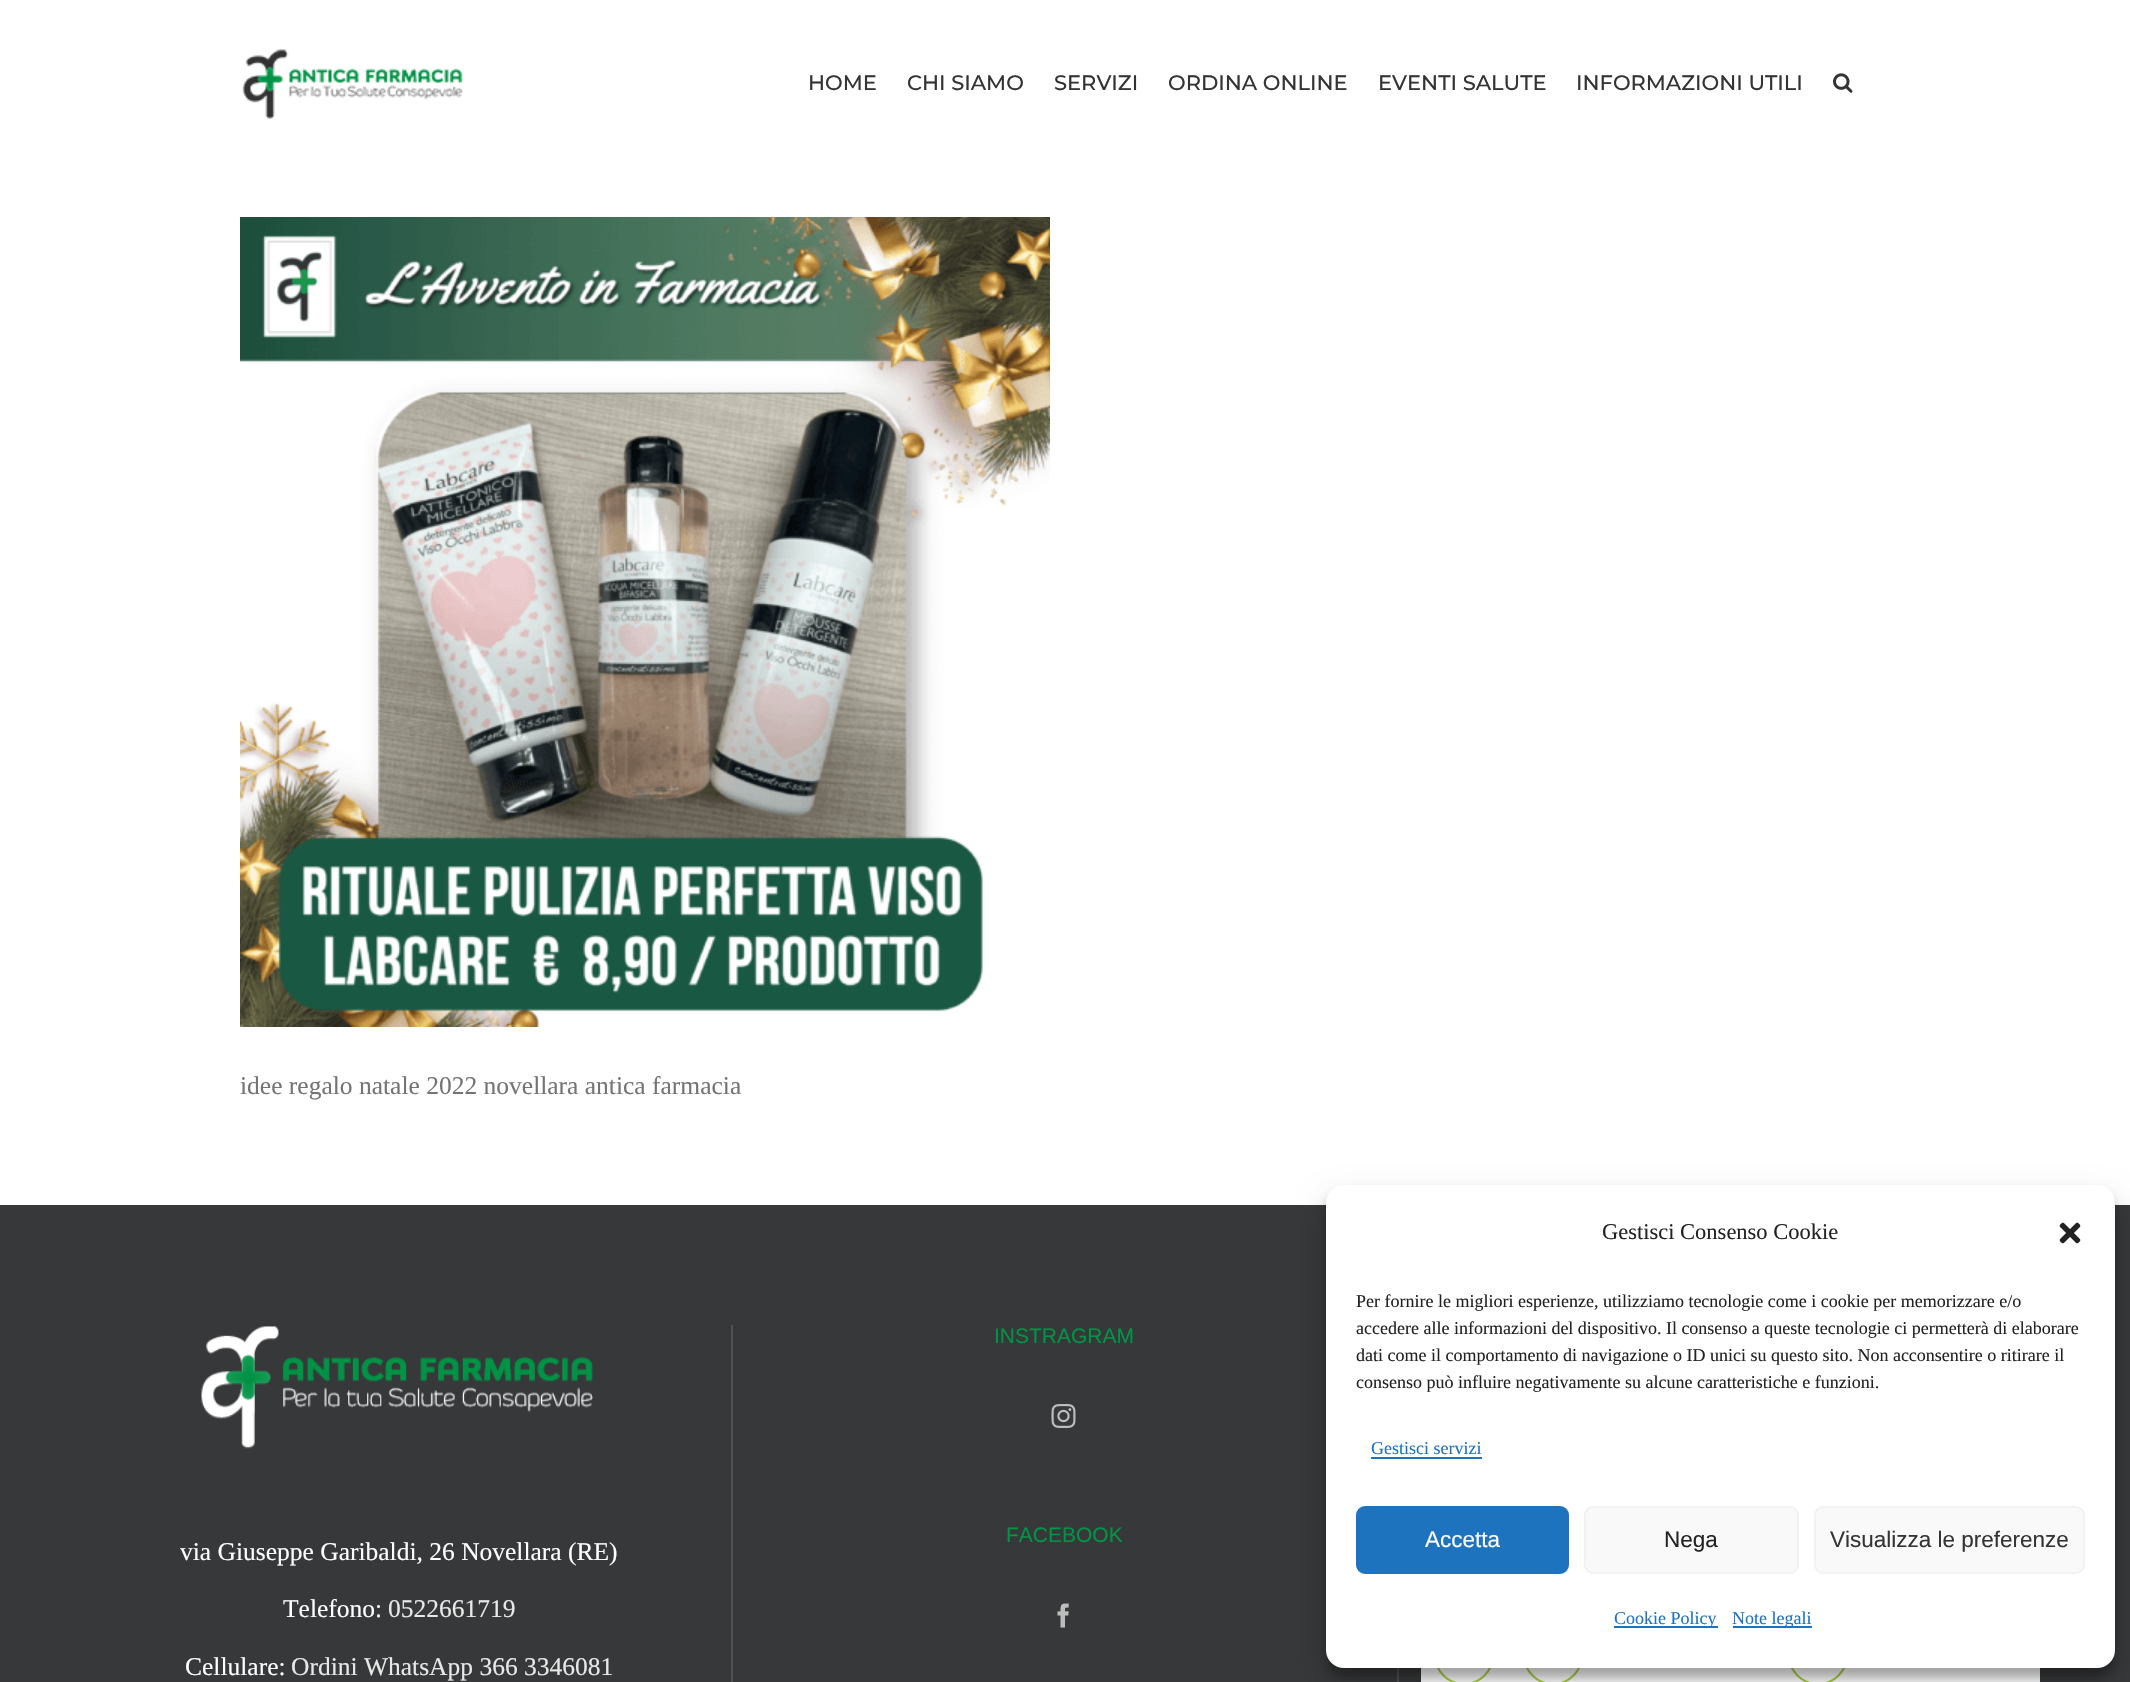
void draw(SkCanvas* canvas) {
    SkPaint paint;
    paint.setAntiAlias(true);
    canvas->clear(0xFFFFFFFF);
    canvas->drawImageRect(SkImages::DeferredFromEncodedData(SkData::MakeFromFileName("img1.png")), SkRect::MakeXYWH(242, 49, 221, 70), SkSamplingOptions());
    SkFont font1(fontMgr->matchFamilyStyle("Montserrat", SkFontStyle(500, SkFontStyle::kNormal_Width, SkFontStyle::kUpright_Slant)), 21);
    font1.setSubpixel(true);
    paint.setColor(0xFF333433);
    canvas->drawString("HOME", 808, 90, font1, paint);
    canvas->drawString("CHI SIAMO", 907, 90, font1, paint);
    canvas->drawString("SERVIZI", 1054, 90, font1, paint);
    canvas->drawString("ORDINA ONLINE", 1168, 90, font1, paint);
    canvas->drawString("EVENTI SALUTE", 1378, 90, font1, paint);
    canvas->drawString("INFORMAZIONI UTILI", 1576, 90, font1, paint);
    canvas->drawImageRect(SkImages::DeferredFromEncodedData(SkData::MakeFromFileName("img2.png")), SkRect::MakeXYWH(1833, 73, 20, 20), SkSamplingOptions());
    canvas->drawImageRect(SkImages::DeferredFromEncodedData(SkData::MakeFromFileName("img3.png")), SkRect::MakeXYWH(240, 217, 810, 810), SkSamplingOptions());
    SkFont font2(fontMgr->matchFamilyStyle("Liberation Serif", SkFontStyle::Normal()), 25.5f);
    font2.setSubpixel(true);
    paint.setColor(0xFF747474);
    canvas->drawString("idee regalo natale 2022 novellara antica farmacia", 240, 1094, font2, paint);
    paint.setColor(0xFF363839);
    canvas->drawRect(SkRect::MakeXYWH(0, 1205, 2130, 477), paint);
    paint.setColor(0xFF505152);
    canvas->drawRect(SkRect::MakeXYWH(1397, 1668, 2, 14), paint);
    SkFont font3(fontMgr->matchFamilyStyle("Liberation Sans", SkFontStyle::Normal()), 21);
    font3.setSubpixel(true);
    paint.setColor(0xFF009445);
    canvas->drawString("INSTRAGRAM", 994, 1343, font3, paint);
    canvas->drawImageRect(SkImages::DeferredFromEncodedData(SkData::MakeFromFileName("img4.png")), SkRect::MakeXYWH(1051, 1404, 25, 24), SkSamplingOptions());
    canvas->drawString("FACEBOOK", 1006, 1542, font3, paint);
    canvas->drawImageRect(SkImages::DeferredFromEncodedData(SkData::MakeFromFileName("img5.png")), SkRect::MakeXYWH(1057, 1603, 12, 25), SkSamplingOptions());
    paint.setColor(0xFF505152);
    canvas->drawRect(SkRect::MakeXYWH(731, 1325, 2, 357), paint);
    canvas->drawImageRect(SkImages::DeferredFromEncodedData(SkData::MakeFromFileName("img6.png")), SkRect::MakeXYWH(201, 1326, 392, 123), SkSamplingOptions());
    paint.setColor(0xFFFFFFFF);
    canvas->drawString("via Giuseppe Garibaldi, 26 Novellara (RE)", 180, 1560, font2, paint);
    canvas->drawString("Telefono:", 283, 1617, font2, paint);
    paint.setColor(0xFFE8E8E8);
    canvas->drawString("0522661719", 388, 1617, font2, paint);
    paint.setColor(0xFFFFFFFF);
    canvas->drawString("Cellulare:", 185, 1675, font2, paint);
    paint.setColor(0xFFE8E8E8);
    canvas->drawString("Ordini WhatsApp 366 3346081", 291, 1675, font2, paint);
    paint.setColor(0xFFFFFFFF);
    canvas->drawRect(SkRect::MakeXYWH(1421, 1668, 619, 14), paint);
    paint.setStyle(SkPaint::kStroke_Style);
    paint.setStrokeWidth(2);
    paint.setColor(0xFFA8D144);
    canvas->drawCircle(1464, 1655, 29, paint);
    canvas->drawCircle(1553, 1655, 29, paint);
    canvas->drawCircle(1818, 1655, 29, paint);
    paint.setStyle(SkPaint::kFill_Style);
    paint.setColor(0x3B000000);
    paint.setMaskFilter(SkMaskFilter::MakeBlur(kNormal_SkBlurStyle, 4.5f));
    canvas->drawRoundRect(SkRect::MakeXYWH(1326, 1194, 789, 483), 18, 18, paint);
    paint.setMaskFilter(nullptr);
    paint.setColor(0x30000000);
    paint.setMaskFilter(SkMaskFilter::MakeBlur(kNormal_SkBlurStyle, 15));
    canvas->drawRoundRect(SkRect::MakeXYWH(1326, 1200, 789, 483), 18, 18, paint);
    paint.setMaskFilter(nullptr);
    paint.setColor(0xFFFFFFFF);
    canvas->drawRoundRect(SkRect::MakeXYWH(1326, 1185, 789, 483), 18, 18, paint);
    SkFont font4(fontMgr->matchFamilyStyle("Liberation Serif", SkFontStyle::Normal()), 22.5f);
    font4.setSubpixel(true);
    paint.setColor(0xFF222222);
    canvas->drawString("Gestisci Consenso Cookie", 1602, 1239, font4, paint);
    canvas->drawImageRect(SkImages::DeferredFromEncodedData(SkData::MakeFromFileName("img7.png")), SkRect::MakeXYWH(2059, 1222, 22, 22), SkSamplingOptions());
    SkFont font5(fontMgr->matchFamilyStyle("Liberation Serif", SkFontStyle::Normal()), 18);
    font5.setSubpixel(true);
    canvas->drawString("Per fornire le migliori esperienze, utilizziamo tecnologie come i cookie per memorizzare e/o", 1356, 1307, font5, paint);
    canvas->drawString("accedere alle informazioni del dispositivo. Il consenso a queste tecnologie ci permetterà di elaborare", 1356, 1334, font5, paint);
    canvas->drawString("dati come il comportamento di navigazione o ID unici su questo sito. Non acconsentire o ritirare il", 1356, 1361, font5, paint);
    canvas->drawString("consenso può influire negativamente su alcune caratteristiche e funzioni.", 1356, 1388, font5, paint);
    paint.setColor(0xFF1E73BE);
    canvas->drawString("Gestisci servizi", 1371, 1454, font5, paint);
    canvas->drawRect(SkRect::MakeXYWH(1371, 1457, 111, 2), paint);
    canvas->drawRoundRect(SkRect::MakeXYWH(1357, 1507, 211, 66), 8, 8, paint);
    paint.setStyle(SkPaint::kStroke_Style);
    canvas->drawRoundRect(SkRect::MakeXYWH(1357, 1507, 211, 66), 8, 8, paint);
    SkFont font6(fontMgr->matchFamilyStyle("Liberation Sans", SkFontStyle::Normal()), 22.5f);
    font6.setSubpixel(true);
    paint.setStyle(SkPaint::kFill_Style);
    paint.setColor(0xFFFFFFFF);
    canvas->drawString("Accetta", 1425, 1547, font6, paint);
    paint.setColor(0xFFF9F9F9);
    canvas->drawRoundRect(SkRect::MakeXYWH(1585, 1507, 213, 66), 8, 8, paint);
    paint.setStyle(SkPaint::kStroke_Style);
    paint.setColor(0xFFF2F2F2);
    canvas->drawRoundRect(SkRect::MakeXYWH(1585, 1507, 213, 66), 8, 8, paint);
    paint.setStyle(SkPaint::kFill_Style);
    paint.setColor(0xFF222222);
    canvas->drawString("Nega", 1664, 1547, font6, paint);
    paint.setColor(0xFFF9F9F9);
    canvas->drawRoundRect(SkRect::MakeXYWH(1815, 1507, 269, 66), 8, 8, paint);
    paint.setStyle(SkPaint::kStroke_Style);
    paint.setColor(0xFFF2F2F2);
    canvas->drawRoundRect(SkRect::MakeXYWH(1815, 1507, 269, 66), 8, 8, paint);
    paint.setStyle(SkPaint::kFill_Style);
    paint.setColor(0xFF333433);
    canvas->drawString("Visualizza le preferenze", 1830, 1547, font6, paint);
    paint.setColor(0xFF1E73BE);
    canvas->drawRect(SkRect::MakeXYWH(1614, 1626, 104, 2), paint);
    canvas->drawString("Cookie Policy", 1614, 1624, font5, paint);
    canvas->drawRect(SkRect::MakeXYWH(1733, 1626, 79, 2), paint);
    canvas->drawString("Note legali", 1732, 1624, font5, paint);
}
